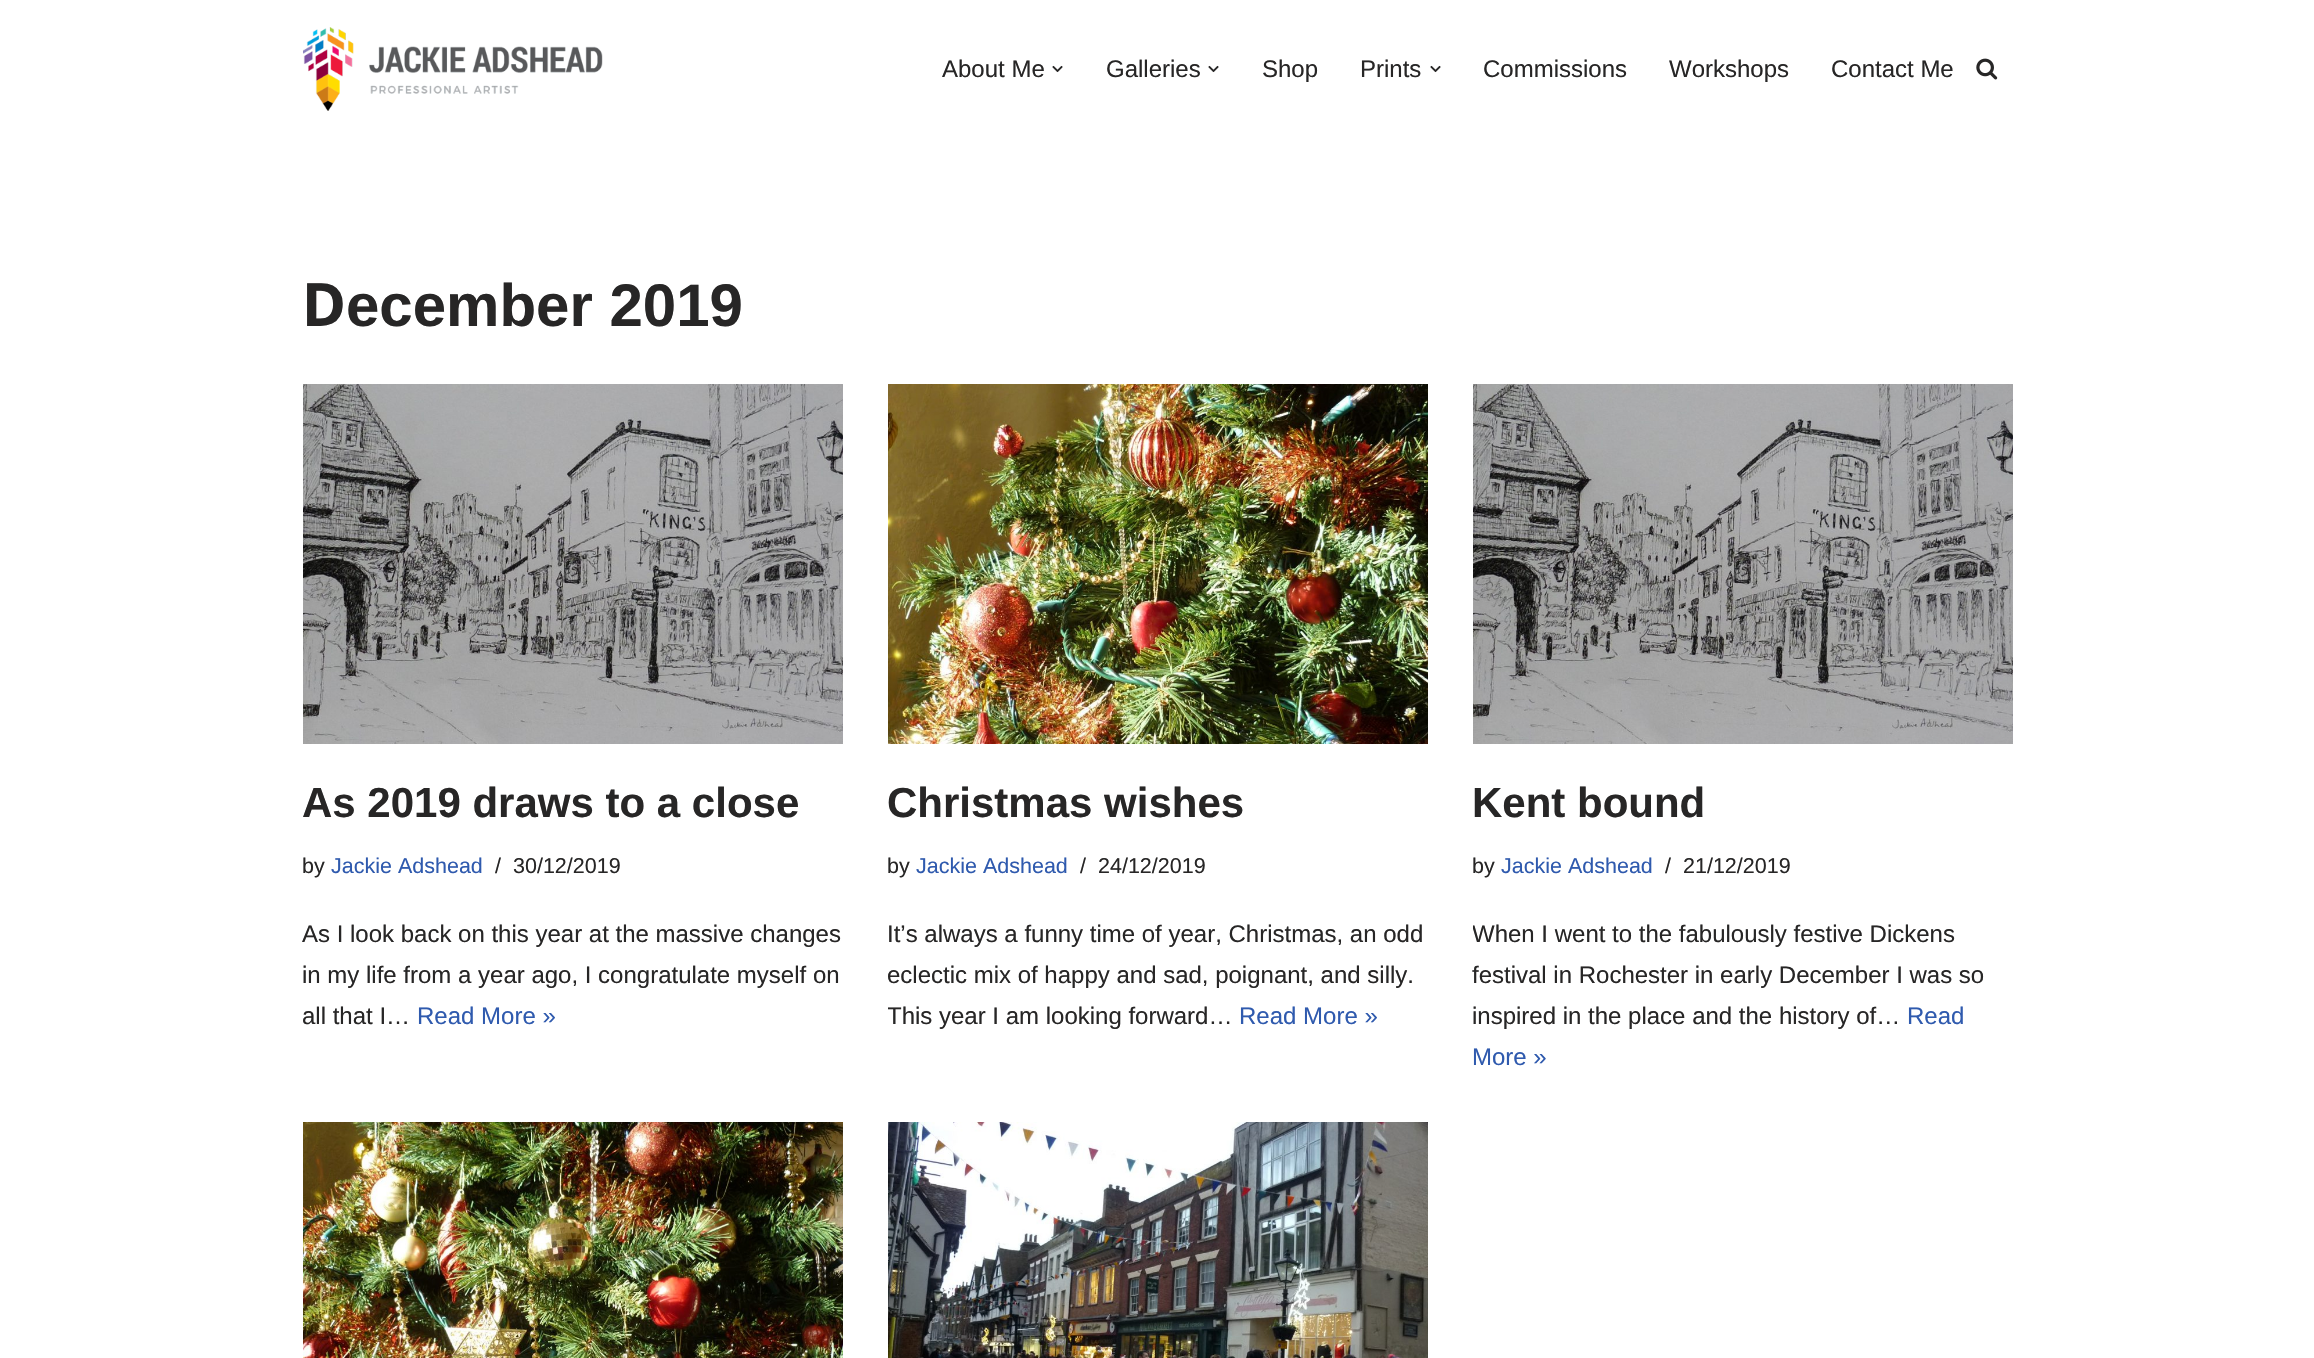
void draw(SkCanvas* canvas) {
    SkPaint paint;
    paint.setAntiAlias(true);
    canvas->clear(0xFFFFFFFF);
    canvas->drawImageRect(SkImages::DeferredFromEncodedData(SkData::MakeFromFileName("img1.png")), SkRect::MakeXYWH(303, 27, 300, 84), SkSamplingOptions());
    SkFont font1(fontMgr->matchFamilyStyle("Liberation Sans", SkFontStyle::Normal()), 24);
    font1.setSubpixel(true);
    paint.setColor(0xFF272626);
    canvas->drawString("About Me", 942, 77, font1, paint);
    canvas->drawImageRect(SkImages::DeferredFromEncodedData(SkData::MakeFromFileName("img2.png")), SkRect::MakeXYWH(1052, 65, 11, 8), SkSamplingOptions());
    canvas->drawString("Galleries", 1106, 77, font1, paint);
    canvas->drawImageRect(SkImages::DeferredFromEncodedData(SkData::MakeFromFileName("img2.png")), SkRect::MakeXYWH(1208, 65, 11, 8), SkSamplingOptions());
    canvas->drawString("Shop", 1262, 77, font1, paint);
    canvas->drawString("Prints", 1360, 77, font1, paint);
    canvas->drawImageRect(SkImages::DeferredFromEncodedData(SkData::MakeFromFileName("img2.png")), SkRect::MakeXYWH(1430, 65, 11, 8), SkSamplingOptions());
    canvas->drawString("Commissions", 1483, 77, font1, paint);
    canvas->drawString("Workshops", 1669, 77, font1, paint);
    canvas->drawString("Contact Me", 1831, 77, font1, paint);
    canvas->drawImageRect(SkImages::DeferredFromEncodedData(SkData::MakeFromFileName("img3.png")), SkRect::MakeXYWH(1976, 58, 22, 22), SkSamplingOptions());
    SkFont font2(fontMgr->matchFamilyStyle("Noto Sans", SkFontStyle::Bold()), 60);
    font2.setSubpixel(true);
    canvas->drawString("D", 302, 326, font2, paint);
    SkFont font3(fontMgr->matchFamilyStyle("Liberation Sans", SkFontStyle::Bold()), 60);
    font3.setSubpixel(true);
    canvas->drawString("ecember 2019", 346, 326, font3, paint);
    canvas->drawImageRect(SkImages::DeferredFromEncodedData(SkData::MakeFromFileName("img4.png")), SkRect::MakeXYWH(303, 384, 540, 360), SkSamplingOptions());
    SkFont font4(fontMgr->matchFamilyStyle("Liberation Sans", SkFontStyle::Bold()), 42);
    font4.setSubpixel(true);
    canvas->drawString("As 2019 draws to a close", 302, 817, font4, paint);
    SkFont font5(fontMgr->matchFamilyStyle("Liberation Sans", SkFontStyle::Normal()), 21.5f);
    font5.setSubpixel(true);
    canvas->drawString("by", 302, 873, font5, paint);
    paint.setColor(0xFF2F5AAE);
    canvas->drawString("Jackie Adshead", 331, 873, font5, paint);
    paint.setColor(0xFF272626);
    canvas->drawString("/", 495, 873, font5, paint);
    canvas->drawString("30/12/2019", 513, 873, font5, paint);
    canvas->drawString("As I look back on this year at the massive changes", 302, 942, font1, paint);
    canvas->drawString("in my life from a year ago, I congratulate myself on", 302, 983, font1, paint);
    canvas->drawString("all that I…", 302, 1024, font1, paint);
    paint.setColor(0xFF2F5AAE);
    canvas->drawString("Read More »", 417, 1024, font1, paint);
    canvas->drawImageRect(SkImages::DeferredFromEncodedData(SkData::MakeFromFileName("img5.png")), SkRect::MakeXYWH(888, 384, 540, 360), SkSamplingOptions());
    paint.setColor(0xFF272626);
    canvas->drawString("Christmas wishes", 887, 817, font4, paint);
    canvas->drawString("by", 887, 873, font5, paint);
    paint.setColor(0xFF2F5AAE);
    canvas->drawString("Jackie Adshead", 916, 873, font5, paint);
    paint.setColor(0xFF272626);
    canvas->drawString("/", 1080, 873, font5, paint);
    canvas->drawString("24/12/2019", 1098, 873, font5, paint);
    canvas->drawString("It’s always a funny time of year, Christmas, an odd", 887, 942, font1, paint);
    canvas->drawString("eclectic mix of happy and sad, poignant, and silly.", 887, 983, font1, paint);
    canvas->save();
    canvas->clipRect(SkRect::MakeXYWH(888, 384, 540, 693));
    canvas->drawString("This year I am looking forward…", 887, 1024, font1, paint);
    canvas->restore();
    paint.setColor(0xFF2F5AAE);
    canvas->drawString("Read More »", 1239, 1024, font1, paint);
    canvas->drawImageRect(SkImages::DeferredFromEncodedData(SkData::MakeFromFileName("img6.png")), SkRect::MakeXYWH(1473, 384, 540, 360), SkSamplingOptions());
    paint.setColor(0xFF272626);
    canvas->drawString("Kent bound", 1472, 817, font4, paint);
    canvas->drawString("by", 1472, 873, font5, paint);
    paint.setColor(0xFF2F5AAE);
    canvas->drawString("Jackie Adshead", 1501, 873, font5, paint);
    paint.setColor(0xFF272626);
    canvas->drawString("/", 1665, 873, font5, paint);
    canvas->drawString("21/12/2019", 1683, 873, font5, paint);
    canvas->save();
    canvas->clipRect(SkRect::MakeXYWH(1473, 384, 540, 693));
    canvas->drawString("When I went to the fabulously festive Dickens", 1472, 942, font1, paint);
    canvas->restore();
    canvas->drawString("festival in Rochester in early December I was so", 1472, 983, font1, paint);
    canvas->drawString("inspired in the place and the history of…", 1472, 1024, font1, paint);
    paint.setColor(0xFF2F5AAE);
    canvas->drawString("Read", 1907, 1024, font1, paint);
    canvas->drawString("More »", 1472, 1065, font1, paint);
    canvas->drawImageRect(SkImages::DeferredFromEncodedData(SkData::MakeFromFileName("img7.png")), SkRect::MakeXYWH(303, 1122, 540, 236), SkSamplingOptions());
    canvas->drawImageRect(SkImages::DeferredFromEncodedData(SkData::MakeFromFileName("img8.png")), SkRect::MakeXYWH(888, 1122, 540, 236), SkSamplingOptions());
}
